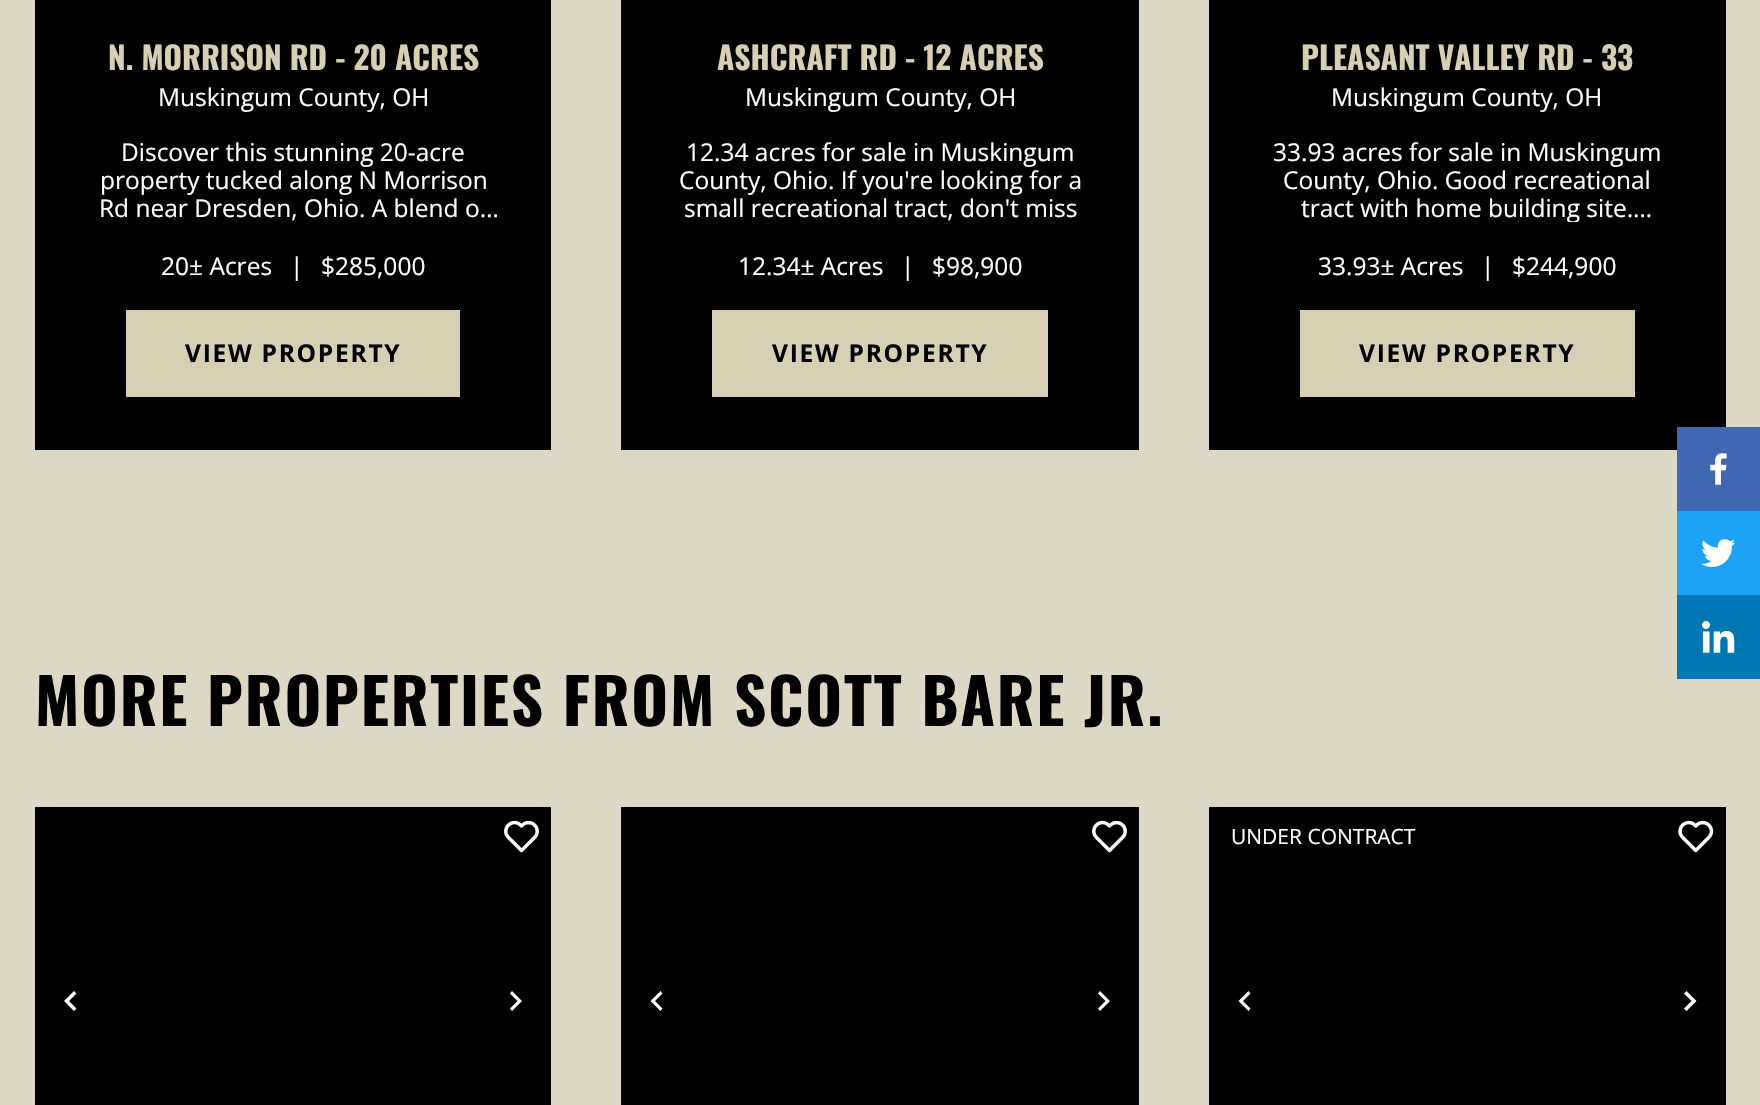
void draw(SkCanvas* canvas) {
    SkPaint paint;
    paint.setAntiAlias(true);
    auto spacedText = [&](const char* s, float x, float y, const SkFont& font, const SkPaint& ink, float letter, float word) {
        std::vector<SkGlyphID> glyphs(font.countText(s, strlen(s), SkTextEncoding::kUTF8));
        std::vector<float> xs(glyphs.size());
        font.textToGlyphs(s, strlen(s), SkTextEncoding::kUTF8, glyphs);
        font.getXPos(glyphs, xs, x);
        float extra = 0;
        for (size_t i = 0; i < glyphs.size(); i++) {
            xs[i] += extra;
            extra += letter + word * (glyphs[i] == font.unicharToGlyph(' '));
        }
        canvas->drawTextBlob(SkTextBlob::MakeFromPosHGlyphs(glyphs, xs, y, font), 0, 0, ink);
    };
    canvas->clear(0xFFDDD8C6);
    paint.setColor(0xFF000000);
    canvas->drawRect(SkRect::MakeXYWH(35, 0, 516, 450), paint);
    SkFont font1(fontMgr->matchFamilyStyle("Oswald", SkFontStyle::Bold()), 31.5f);
    font1.setSubpixel(true);
    paint.setColor(0xFFD6CFB4);
    canvas->drawString("N. MORRISON RD - 20 ACRES", 108, 70, font1, paint);
    SkFont font2(fontMgr->matchFamilyStyle("Open Sans", SkFontStyle::Normal()), 24.5f);
    font2.setSubpixel(true);
    paint.setColor(0xFFFFFFFF);
    canvas->drawString("Muskingum County, OH", 158, 106, font2, paint);
    canvas->drawString("Discover this stunning 20-acre", 121, 161, font2, paint);
    canvas->drawString("property tucked along N Morrison", 100, 189, font2, paint);
    canvas->drawString("Rd near Dresden, Ohio. A blend o…", 99, 217, font2, paint);
    canvas->drawString("20± Acres", 161, 275, font2, paint);
    canvas->drawString("|", 290, 275, font2, paint);
    canvas->drawString("$285,000", 321, 275, font2, paint);
    paint.setColor(0xFFD6CFB4);
    canvas->drawRect(SkRect::MakeXYWH(126, 310, 334, 87), paint);
    SkFont font3(fontMgr->matchFamilyStyle("Open Sans", SkFontStyle::Bold()), 24.5f);
    font3.setSubpixel(true);
    paint.setColor(0xFF000000);
    spacedText("VIEW PROPERTY", 185, 362, font3, paint, 1.75f, 0);
    canvas->drawRect(SkRect::MakeXYWH(621, 0, 518, 450), paint);
    paint.setColor(0xFFD6CFB4);
    canvas->drawString("ASHCRAFT RD - 12 ACRES", 717, 70, font1, paint);
    paint.setColor(0xFFFFFFFF);
    canvas->drawString("Muskingum County, OH", 745, 106, font2, paint);
    canvas->drawString("12.34 acres for sale in Muskingum", 686, 161, font2, paint);
    canvas->drawString("County, Ohio. If you're looking for a", 679, 189, font2, paint);
    canvas->drawString("small recreational tract, don't miss", 684, 217, font2, paint);
    canvas->drawString("12.34± Acres", 738, 275, font2, paint);
    canvas->drawString("|", 901, 275, font2, paint);
    canvas->drawString("$98,900", 932, 275, font2, paint);
    paint.setColor(0xFFD6CFB4);
    canvas->drawRect(SkRect::MakeXYWH(712, 310, 336, 87), paint);
    paint.setColor(0xFF000000);
    spacedText("VIEW PROPERTY", 772, 362, font3, paint, 1.75f, 0);
    canvas->drawRect(SkRect::MakeXYWH(1209, 0, 517, 450), paint);
    paint.setColor(0xFFD6CFB4);
    canvas->drawString("PLEASANT VALLEY RD - 33", 1301, 70, font1, paint);
    paint.setColor(0xFFFFFFFF);
    canvas->drawString("Muskingum County, OH", 1331, 106, font2, paint);
    canvas->drawString("33.93 acres for sale in Muskingum", 1273, 161, font2, paint);
    canvas->drawString("County, Ohio. Good recreational", 1283, 189, font2, paint);
    canvas->save();
    canvas->clipRect(SkRect::MakeXYWH(1262, 138, 411, 84));
    canvas->drawString("tract with home building site.…", 1301, 217, font2, paint);
    canvas->restore();
    canvas->drawString("33.93± Acres", 1318, 275, font2, paint);
    canvas->drawString("|", 1481, 275, font2, paint);
    canvas->drawString("$244,900", 1512, 275, font2, paint);
    paint.setColor(0xFFD6CFB4);
    canvas->drawRect(SkRect::MakeXYWH(1300, 310, 335, 87), paint);
    paint.setColor(0xFF000000);
    spacedText("VIEW PROPERTY", 1359, 362, font3, paint, 1.75f, 0);
    SkFont font4(fontMgr->matchFamilyStyle("Oswald", SkFontStyle::Bold()), 63);
    font4.setSubpixel(true);
    spacedText("MORE PROPERTIES FROM SCOTT BARE JR.", 35, 726, font4, paint, 1.75f, 0);
    canvas->drawRect(SkRect::MakeXYWH(35, 807, 516, 298), paint);
    canvas->drawImageRect(SkImages::DeferredFromEncodedData(SkData::MakeFromFileName("img1.png")), SkRect::MakeXYWH(504, 820, 35, 33), SkSamplingOptions());
    paint.setColor(0xFFFFFFFF);
    canvas->drawPath(SkPathBuilder().moveTo(74, 991).lineTo(64, 1001).lineTo(74, 1011).lineTo(76.5f, 1008.5f).lineTo(69, 1001).lineTo(76.5f, 993.5f).close().detach(), paint);
    canvas->drawPath(SkPathBuilder().moveTo(512, 1011).lineTo(522, 1001).lineTo(512, 991).lineTo(510, 993.5f).lineTo(517.5f, 1001).lineTo(510, 1008.5f).close().detach(), paint);
    paint.setColor(0xFF000000);
    canvas->drawRect(SkRect::MakeXYWH(621, 807, 518, 298), paint);
    canvas->drawImageRect(SkImages::DeferredFromEncodedData(SkData::MakeFromFileName("img1.png")), SkRect::MakeXYWH(1092, 820, 35, 33), SkSamplingOptions());
    paint.setColor(0xFFFFFFFF);
    canvas->drawPath(SkPathBuilder().moveTo(660.5f, 991).lineTo(650.5f, 1001).lineTo(660.5f, 1011).lineTo(662.5f, 1008.5f).lineTo(655, 1001).lineTo(662.5f, 993.5f).close().detach(), paint);
    canvas->drawPath(SkPathBuilder().moveTo(1100, 1011).lineTo(1110, 1001).lineTo(1100, 991).lineTo(1098, 993.5f).lineTo(1105.5f, 1001).lineTo(1098, 1008.5f).close().detach(), paint);
    paint.setColor(0xFF000000);
    canvas->drawRect(SkRect::MakeXYWH(1209, 807, 517, 298), paint);
    SkFont font5(fontMgr->matchFamilyStyle("Open Sans", SkFontStyle::Normal()), 21);
    font5.setSubpixel(true);
    paint.setColor(0xFFFFFFFF);
    canvas->drawString("UNDER CONTRACT", 1231, 844, font5, paint);
    canvas->drawImageRect(SkImages::DeferredFromEncodedData(SkData::MakeFromFileName("img2.png")), SkRect::MakeXYWH(1678, 820, 36, 33), SkSamplingOptions());
    canvas->drawPath(SkPathBuilder().moveTo(1248.5f, 991).lineTo(1238.5f, 1001).lineTo(1248.5f, 1011).lineTo(1250.5f, 1008.5f).lineTo(1243, 1001).lineTo(1250.5f, 993.5f).close().detach(), paint);
    canvas->drawPath(SkPathBuilder().moveTo(1686.5f, 1011).lineTo(1696.5f, 1001).lineTo(1686.5f, 991).lineTo(1684, 993.5f).lineTo(1691.5f, 1001).lineTo(1684, 1008.5f).close().detach(), paint);
    paint.setColor(0xFF4267B2);
    canvas->drawRect(SkRect::MakeXYWH(1677, 427, 83, 84), paint);
    canvas->drawImageRect(SkImages::DeferredFromEncodedData(SkData::MakeFromFileName("img3.png")), SkRect::MakeXYWH(1710, 453, 17, 32), SkSamplingOptions());
    paint.setColor(0xFF1DA1F2);
    canvas->drawRect(SkRect::MakeXYWH(1677, 511, 83, 84), paint);
    canvas->drawImageRect(SkImages::DeferredFromEncodedData(SkData::MakeFromFileName("img4.png")), SkRect::MakeXYWH(1701, 539, 35, 28), SkSamplingOptions());
    paint.setColor(0xFF0077B5);
    canvas->drawRect(SkRect::MakeXYWH(1677, 595, 83, 84), paint);
    canvas->drawImageRect(SkImages::DeferredFromEncodedData(SkData::MakeFromFileName("img5.png")), SkRect::MakeXYWH(1702, 621, 33, 32), SkSamplingOptions());
}
